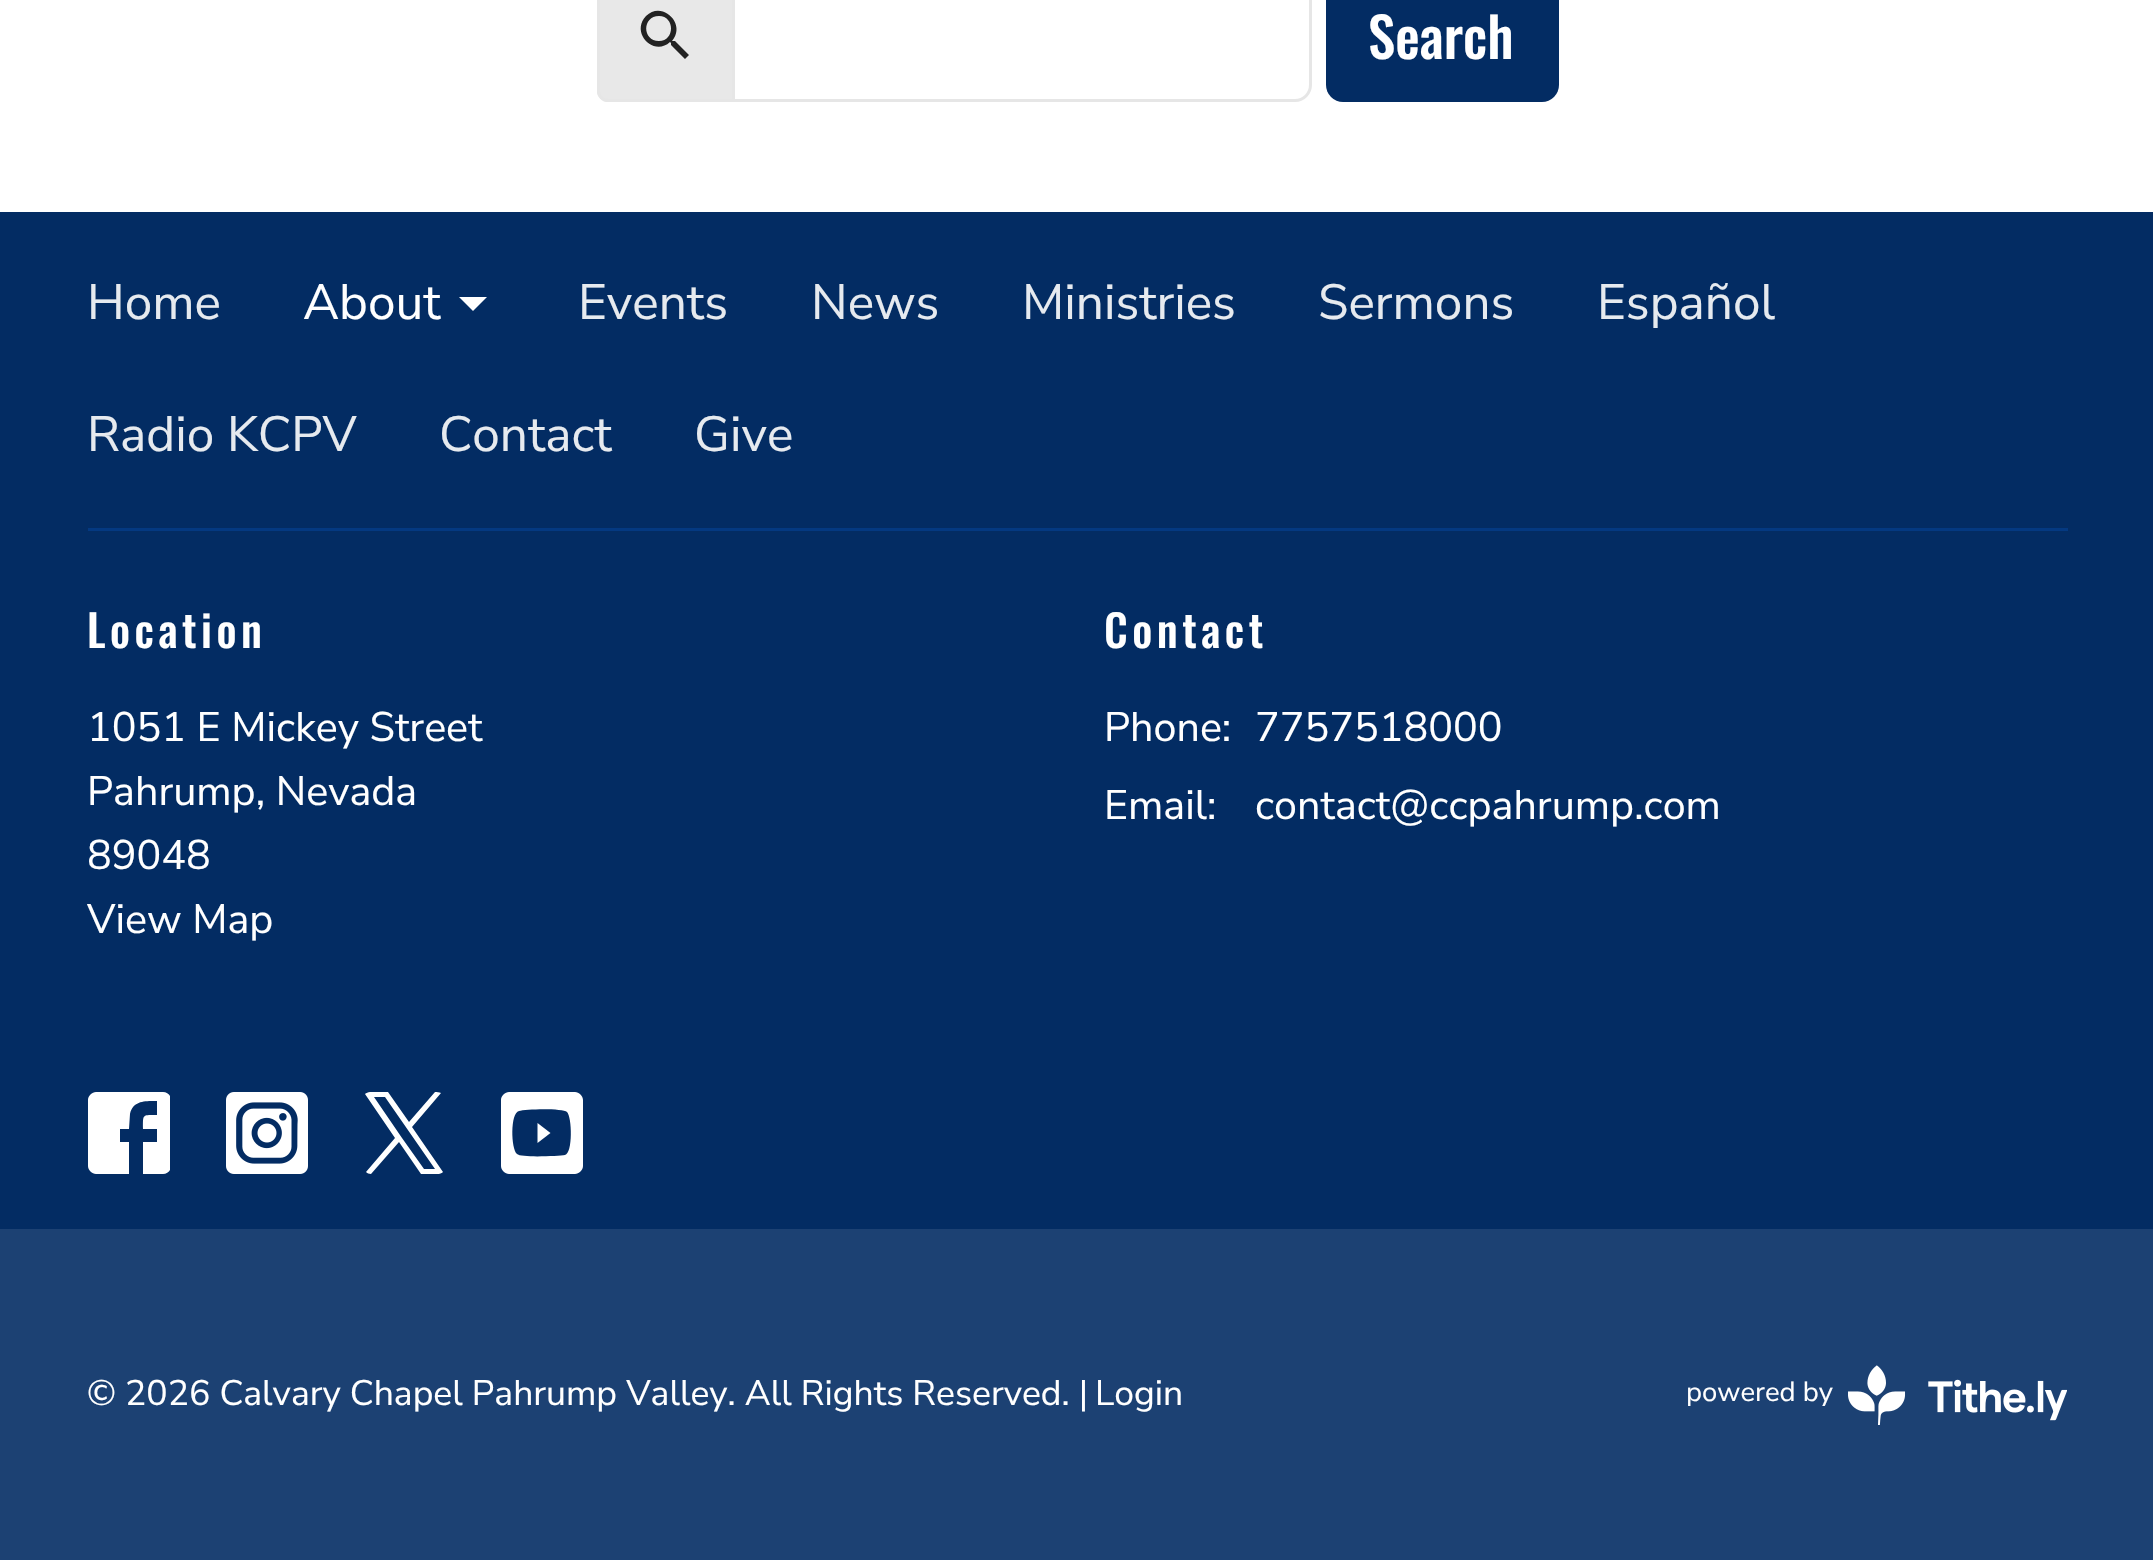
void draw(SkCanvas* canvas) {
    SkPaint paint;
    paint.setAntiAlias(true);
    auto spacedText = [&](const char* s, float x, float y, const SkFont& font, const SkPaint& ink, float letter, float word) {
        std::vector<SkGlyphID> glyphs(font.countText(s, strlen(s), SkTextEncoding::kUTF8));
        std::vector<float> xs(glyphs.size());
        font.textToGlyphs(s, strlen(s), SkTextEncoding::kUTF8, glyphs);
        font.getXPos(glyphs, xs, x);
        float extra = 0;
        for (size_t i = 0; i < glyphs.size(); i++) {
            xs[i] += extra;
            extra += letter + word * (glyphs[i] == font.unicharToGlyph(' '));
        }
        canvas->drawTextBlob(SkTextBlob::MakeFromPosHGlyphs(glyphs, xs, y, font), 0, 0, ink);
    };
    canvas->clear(0xFFFFFFFF);
    paint.setColor(0xFFE8E8E8);
    canvas->drawPath(SkPathBuilder().moveTo(608, -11).lineTo(732, -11).lineTo(732, 102).lineTo(608, 102).cubicTo(602, 102, 597, 97, 597, 91).lineTo(597, 0).cubicTo(597, -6, 602, -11, 608, -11).close().detach(), paint);
    paint.setColor(0xFFE6E6E6);
    canvas->drawPath(SkPathBuilder(SkPathFillType::kEvenOdd).moveTo(608, -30).lineTo(732, -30).lineTo(732, 102).lineTo(608, 102).cubicTo(602, 102, 597, 97, 597, 91).lineTo(597, -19).cubicTo(597, -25, 602, -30, 608, -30).close().moveTo(608, -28).lineTo(732, -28).lineTo(732, 99).lineTo(608, 99).cubicTo(603, 99, 600, 95, 600, 91).lineTo(600, -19).cubicTo(600, -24, 603, -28, 608, -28).close().detach(), paint);
    paint.setColor(0xFF222222);
    canvas->drawPath(SkPathBuilder().moveTo(675, 41).lineTo(673, 41).lineTo(672, 41).cubicTo(687, 24, 662, 0, 646, 16).cubicTo(630, 33, 654, 57, 670, 42).lineTo(671, 43).lineTo(671, 45).lineTo(685, 59).lineTo(689, 55).close().moveTo(659, 41).cubicTo(642, 41, 642, 16, 659, 16).cubicTo(675, 16, 675, 41, 659, 41).close().detach(), paint);
    paint.setStyle(SkPaint::kStroke_Style);
    paint.setStrokeWidth(3);
    paint.setColor(0xFFE6E6E6);
    canvas->drawPath(SkPathBuilder().moveTo(733.5f, -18.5f).lineTo(1295, -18.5f).cubicTo(1303.5f, -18.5f, 1310.5f, -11.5f, 1310.5f, -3).lineTo(1310.5f, 85).cubicTo(1310.5f, 93.5f, 1303.5f, 100.5f, 1295, 100.5f).lineTo(733.5f, 100.5f).close().detach(), paint);
    paint.setStyle(SkPaint::kFill_Style);
    paint.setColor(0xFF032C63);
    canvas->drawRoundRect(SkRect::MakeXYWH(1326, -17, 233, 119), 17, 17, paint);
    SkFont font1(fontMgr->matchFamilyStyle("Oswald", SkFontStyle(500, SkFontStyle::kNormal_Width, SkFontStyle::kUpright_Slant)), 55);
    font1.setSubpixel(true);
    paint.setColor(0xFFFFFFFF);
    canvas->drawString("Search", 1368, 59, font1, paint);
    paint.setColor(0xFF032C63);
    canvas->drawRect(SkRect::MakeXYWH(0, 212, 2153, 1017), paint);
    SkFont font2(fontMgr->matchFamilyStyle("Nunito Sans", SkFontStyle::Normal()), 49.5f);
    font2.setSubpixel(true);
    paint.setColor(0xFFE6EAEF);
    canvas->drawString("Home", 87, 319, font2, paint);
    paint.setColor(0xFFFFFFFF);
    canvas->drawString("About", 303, 319, font2, paint);
    canvas->drawPath(SkPathBuilder().moveTo(459, 297).lineTo(473, 311).lineTo(487, 297).close().detach(), paint);
    paint.setColor(0xFFE6EAEF);
    canvas->drawString("Events", 578, 319, font2, paint);
    canvas->drawString("News", 811, 319, font2, paint);
    canvas->drawString("Ministries", 1022, 319, font2, paint);
    canvas->drawString("Sermons", 1318, 319, font2, paint);
    canvas->drawString("Español", 1597, 319, font2, paint);
    canvas->drawString("Radio KCPV", 87, 451, font2, paint);
    canvas->drawString("Contact", 439, 451, font2, paint);
    canvas->drawString("Give", 694, 451, font2, paint);
    paint.setColor(0xFF043981);
    canvas->drawRect(SkRect::MakeXYWH(88, 528, 1980, 3), paint);
    SkFont font3(fontMgr->matchFamilyStyle("Oswald", SkFontStyle(500, SkFontStyle::kNormal_Width, SkFontStyle::kUpright_Slant)), 44);
    font3.setSubpixel(true);
    paint.setColor(0xFFFFFFFF);
    spacedText("Location", 87, 648, font3, paint, 4.5f, 0);
    SkFont font4(fontMgr->matchFamilyStyle("Nunito Sans", SkFontStyle::Normal()), 41.25f);
    font4.setSubpixel(true);
    canvas->drawString("1051 E Mickey Street", 87, 741, font4, paint);
    canvas->drawString("Pahrump, Nevada", 87, 805, font4, paint);
    canvas->drawString("89048", 87, 869, font4, paint);
    canvas->drawString("View Map", 87, 933, font4, paint);
    spacedText("Contact", 1104, 648, font3, paint, 4.5f, 0);
    canvas->drawString("Phone:", 1104, 741, font4, paint);
    canvas->drawString("7757518000", 1255, 741, font4, paint);
    canvas->drawString("Email:", 1104, 819, font4, paint);
    canvas->drawString("contact@ccpahrump.com", 1255, 819, font4, paint);
    canvas->drawPath(SkPathBuilder().moveTo(157, 1101).lineTo(157, 1115).cubicTo(142, 1115, 143, 1114, 143, 1129).lineTo(157, 1129).lineTo(157, 1142).lineTo(143, 1142).lineTo(143, 1174).lineTo(163, 1174).cubicTo(166, 1174, 169, 1172, 170, 1170).lineTo(170, 1096).cubicTo(169, 1094, 166, 1092, 163, 1092).lineTo(96, 1092).cubicTo(92, 1092, 88, 1096, 88, 1100).lineTo(88, 1166).cubicTo(88, 1170, 92, 1174, 96, 1174).lineTo(129, 1174).lineTo(129, 1142).lineTo(120, 1142).lineTo(120, 1129).lineTo(129, 1129).lineTo(130, 1114).cubicTo(133, 1100, 146, 1101, 157, 1101).close().detach(), paint);
    canvas->drawImageRect(SkImages::DeferredFromEncodedData(SkData::MakeFromFileName("img1.png")), SkRect::MakeXYWH(226, 1092, 82, 82), SkSamplingOptions());
    canvas->save();
    canvas->clipRect(SkRect::MakeXYWH(363, 1092, 83, 82));
    canvas->drawPath(SkPathBuilder(SkPathFillType::kEvenOdd).moveTo(412, 1127).lineTo(441, 1093).cubicTo(439, 1092, 437, 1092, 435, 1092).lineTo(409, 1122).lineTo(388, 1092).cubicTo(383, 1092, 370, 1090, 365, 1094).lineTo(395, 1138).lineTo(366, 1172).cubicTo(367, 1173, 369, 1174, 371, 1174).lineTo(399, 1142).lineTo(421, 1174).cubicTo(426, 1174, 439, 1176, 443, 1172).close().moveTo(402, 1138).lineTo(424, 1169).lineTo(435, 1169).lineTo(385, 1097).lineTo(374, 1097).close().detach(), paint);
    canvas->restore();
    canvas->drawPath(SkPathBuilder().moveTo(537.5f, 1123).lineTo(550.5f, 1133).lineTo(537.5f, 1143).close().detach(), paint);
    canvas->drawPath(SkPathBuilder(SkPathFillType::kEvenOdd).moveTo(509, 1092).cubicTo(505, 1092, 501, 1096, 501, 1100).lineTo(501, 1166).cubicTo(501, 1170, 505, 1174, 509, 1174).lineTo(575, 1174).cubicTo(579, 1174, 583, 1170, 583, 1166).lineTo(583, 1100).cubicTo(583, 1096, 579, 1092, 575, 1092).close().moveTo(565, 1155).cubicTo(573, 1153, 572, 1117, 567, 1112).cubicTo(563, 1108, 525, 1109, 519, 1111).cubicTo(510, 1113, 511, 1149, 517, 1154).cubicTo(521, 1158, 559, 1156, 565, 1155).close().detach(), paint);
    paint.setColor(0xFF1C4173);
    canvas->drawRect(SkRect::MakeXYWH(0, 1229, 2153, 331), paint);
    SkFont font5(fontMgr->matchFamilyStyle("Nunito Sans", SkFontStyle::Normal()), 35.5f);
    font5.setSubpixel(true);
    paint.setColor(0xFFFFFFFF);
    canvas->drawString("© 2026 Calvary Chapel Pahrump Valley. All Rights Reserved. |", 87, 1405, font5, paint);
    canvas->drawString("Login", 1095, 1405, font5, paint);
    SkFont font6(fontMgr->matchFamilyStyle("Nunito Sans", SkFontStyle::Normal()), 27.5f);
    font6.setSubpixel(true);
    canvas->drawString("powered by", 1686, 1401, font6, paint);
    canvas->drawImageRect(SkImages::DeferredFromEncodedData(SkData::MakeFromFileName("img2.png")), SkRect::MakeXYWH(1848, 1365, 219, 60), SkSamplingOptions());
}
